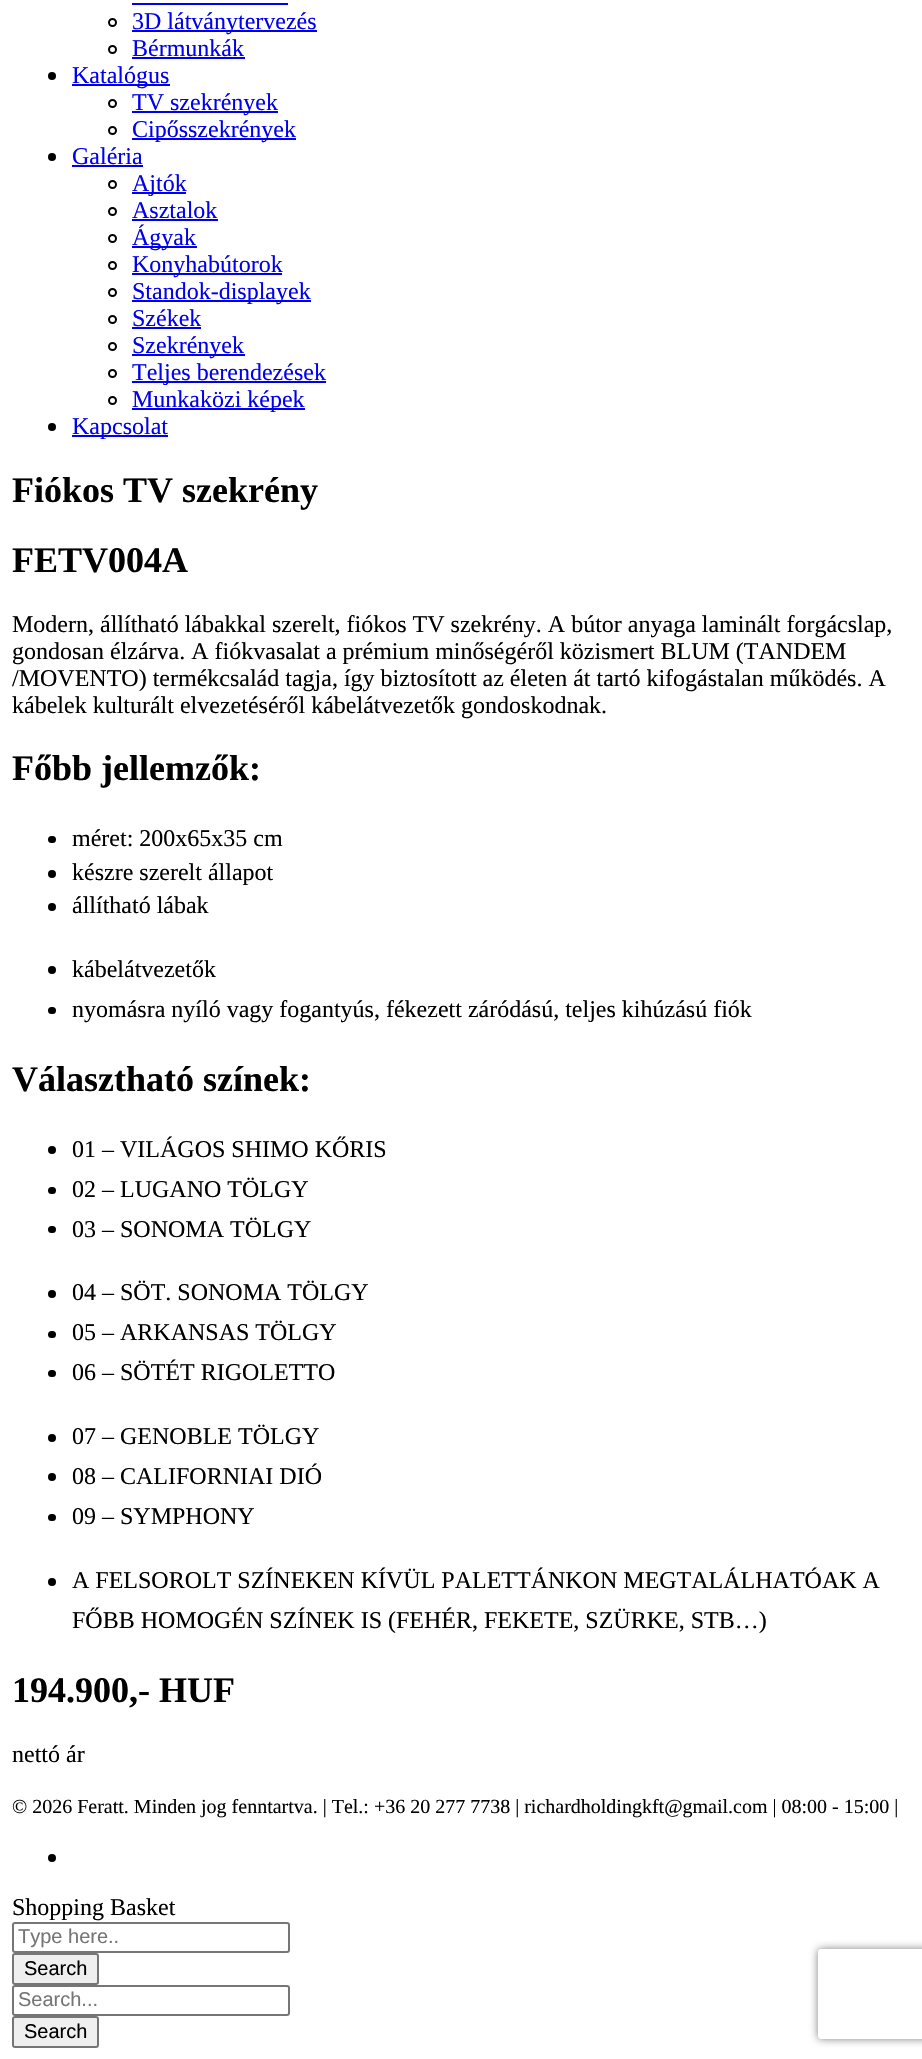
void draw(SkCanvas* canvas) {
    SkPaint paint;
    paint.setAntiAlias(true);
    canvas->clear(0xFFFFFFFF);
    paint.setColor(0xFF0000EE);
    canvas->drawRect(SkRect::MakeXYWH(132, 3, 156, 2), paint);
    paint.setStyle(SkPaint::kStroke_Style);
    paint.setStrokeWidth(2);
    paint.setColor(0xFF000000);
    canvas->drawCircle(112.5f, 22.5f, 3.5f, paint);
    paint.setStyle(SkPaint::kFill_Style);
    paint.setColor(0xFF0000EE);
    canvas->drawRect(SkRect::MakeXYWH(132, 30, 185, 2), paint);
    SkFont font1(fontMgr->matchFamilyStyle("Liberation Serif", SkFontStyle::Normal()), 24);
    font1.setSubpixel(true);
    canvas->drawString("3D látványtervezés", 132, 29, font1, paint);
    paint.setStyle(SkPaint::kStroke_Style);
    paint.setColor(0xFF000000);
    canvas->drawCircle(112.5f, 49.5f, 3.5f, paint);
    paint.setStyle(SkPaint::kFill_Style);
    paint.setColor(0xFF0000EE);
    canvas->drawString("Bérmunkák", 132, 56, font1, paint);
    canvas->drawRect(SkRect::MakeXYWH(132, 57, 113, 2), paint);
    paint.setColor(0xFF000000);
    canvas->drawCircle(52, 76, 4, paint);
    paint.setColor(0xFF0000EE);
    canvas->drawRect(SkRect::MakeXYWH(72, 84, 98, 2), paint);
    canvas->drawString("Katalógus", 72, 83, font1, paint);
    paint.setStyle(SkPaint::kStroke_Style);
    paint.setColor(0xFF000000);
    canvas->drawCircle(112.5f, 103.5f, 3.5f, paint);
    paint.setStyle(SkPaint::kFill_Style);
    paint.setColor(0xFF0000EE);
    canvas->drawRect(SkRect::MakeXYWH(132, 111, 146, 2), paint);
    canvas->drawString("TV szekrények", 132, 110, font1, paint);
    paint.setStyle(SkPaint::kStroke_Style);
    paint.setColor(0xFF000000);
    canvas->drawCircle(112.5f, 130.5f, 3.5f, paint);
    paint.setStyle(SkPaint::kFill_Style);
    paint.setColor(0xFF0000EE);
    canvas->drawRect(SkRect::MakeXYWH(132, 138, 164, 2), paint);
    canvas->drawString("Cipősszekrények", 132, 137, font1, paint);
    paint.setColor(0xFF000000);
    canvas->drawCircle(52, 157, 4, paint);
    paint.setColor(0xFF0000EE);
    canvas->drawString("Galéria", 72, 164, font1, paint);
    canvas->drawRect(SkRect::MakeXYWH(72, 165, 71, 2), paint);
    paint.setStyle(SkPaint::kStroke_Style);
    paint.setColor(0xFF000000);
    canvas->drawCircle(112.5f, 184.5f, 3.5f, paint);
    paint.setStyle(SkPaint::kFill_Style);
    paint.setColor(0xFF0000EE);
    canvas->drawRect(SkRect::MakeXYWH(132, 192, 54, 2), paint);
    canvas->drawString("Ajtók", 132, 191, font1, paint);
    paint.setStyle(SkPaint::kStroke_Style);
    paint.setColor(0xFF000000);
    canvas->drawCircle(112.5f, 211.5f, 3.5f, paint);
    paint.setStyle(SkPaint::kFill_Style);
    paint.setColor(0xFF0000EE);
    canvas->drawString("Asztalok", 132, 218, font1, paint);
    canvas->drawRect(SkRect::MakeXYWH(132, 219, 86, 2), paint);
    paint.setStyle(SkPaint::kStroke_Style);
    paint.setColor(0xFF000000);
    canvas->drawCircle(112.5f, 238.5f, 3.5f, paint);
    paint.setStyle(SkPaint::kFill_Style);
    paint.setColor(0xFF0000EE);
    canvas->drawRect(SkRect::MakeXYWH(132, 246, 65, 2), paint);
    canvas->drawString("Ágyak", 132, 245, font1, paint);
    paint.setStyle(SkPaint::kStroke_Style);
    paint.setColor(0xFF000000);
    canvas->drawCircle(112.5f, 265.5f, 3.5f, paint);
    paint.setStyle(SkPaint::kFill_Style);
    paint.setColor(0xFF0000EE);
    canvas->drawRect(SkRect::MakeXYWH(132, 273, 150, 2), paint);
    canvas->drawString("Konyhabútorok", 132, 272, font1, paint);
    paint.setStyle(SkPaint::kStroke_Style);
    paint.setColor(0xFF000000);
    canvas->drawCircle(112.5f, 292.5f, 3.5f, paint);
    paint.setStyle(SkPaint::kFill_Style);
    paint.setColor(0xFF0000EE);
    canvas->drawRect(SkRect::MakeXYWH(132, 300, 179, 2), paint);
    canvas->drawString("Standok-displayek", 132, 299, font1, paint);
    paint.setStyle(SkPaint::kStroke_Style);
    paint.setColor(0xFF000000);
    canvas->drawCircle(112.5f, 319.5f, 3.5f, paint);
    paint.setStyle(SkPaint::kFill_Style);
    paint.setColor(0xFF0000EE);
    canvas->drawString("Székek", 132, 326, font1, paint);
    canvas->drawRect(SkRect::MakeXYWH(132, 327, 69, 2), paint);
    paint.setStyle(SkPaint::kStroke_Style);
    paint.setColor(0xFF000000);
    canvas->drawCircle(112.5f, 346.5f, 3.5f, paint);
    paint.setStyle(SkPaint::kFill_Style);
    paint.setColor(0xFF0000EE);
    canvas->drawRect(SkRect::MakeXYWH(132, 354, 113, 2), paint);
    canvas->drawString("Szekrények", 132, 353, font1, paint);
    paint.setStyle(SkPaint::kStroke_Style);
    paint.setColor(0xFF000000);
    canvas->drawCircle(112.5f, 373.5f, 3.5f, paint);
    paint.setStyle(SkPaint::kFill_Style);
    paint.setColor(0xFF0000EE);
    canvas->drawRect(SkRect::MakeXYWH(132, 381, 194, 2), paint);
    canvas->drawString("Teljes berendezések", 132, 380, font1, paint);
    paint.setStyle(SkPaint::kStroke_Style);
    paint.setColor(0xFF000000);
    canvas->drawCircle(112.5f, 400.5f, 3.5f, paint);
    paint.setStyle(SkPaint::kFill_Style);
    paint.setColor(0xFF0000EE);
    canvas->drawRect(SkRect::MakeXYWH(132, 408, 173, 2), paint);
    canvas->drawString("Munkaközi képek", 132, 407, font1, paint);
    paint.setColor(0xFF000000);
    canvas->drawCircle(52, 427, 4, paint);
    paint.setColor(0xFF0000EE);
    canvas->drawRect(SkRect::MakeXYWH(72, 435, 96, 2), paint);
    canvas->drawString("Kapcsolat", 72, 434, font1, paint);
    SkFont font2(fontMgr->matchFamilyStyle("Liberation Serif", SkFontStyle::Bold()), 36);
    font2.setSubpixel(true);
    paint.setColor(0xFF000000);
    canvas->drawString("Fiókos TV szekrény", 12, 502, font2, paint);
    canvas->drawString("FETV004A", 12, 572, font2, paint);
    canvas->drawString("Modern, állítható lábakkal szerelt, fiókos TV szekrény. A bútor anyaga laminált forgácslap,", 12, 632, font1, paint);
    canvas->drawString("gondosan élzárva. A fiókvasalat a prémium minőségéről közismert BLUM (TANDEM", 12, 659, font1, paint);
    canvas->drawString("/MOVENTO) termékcsalád tagja, így biztosított az életen át tartó kifogástalan működés. A", 12, 686, font1, paint);
    canvas->drawString("kábelek kulturált elvezetéséről kábelátvezetők gondoskodnak.", 12, 713, font1, paint);
    canvas->drawString("Főbb jellemzők:", 12, 780, font2, paint);
    canvas->drawRoundRect(SkRect::MakeXYWH(48, 836, 8, 7), 3.5f, 3.5f, paint);
    canvas->drawString("méret: 200x65x35 cm", 72, 846, font1, paint);
    canvas->drawCircle(52, 874, 4, paint);
    canvas->drawString("készre szerelt állapot", 72, 880, font1, paint);
    canvas->drawCircle(52, 907, 4, paint);
    canvas->drawString("állítható lábak", 72, 913, font1, paint);
    canvas->drawCircle(52, 970, 4, paint);
    canvas->drawString("kábelátvezetők", 72, 977, font1, paint);
    canvas->drawRoundRect(SkRect::MakeXYWH(48, 1007, 8, 7), 3.5f, 3.5f, paint);
    canvas->drawString("nyomásra nyíló vagy fogantyús, fékezett záródású, teljes kihúzású fiók", 72, 1017, font1, paint);
    canvas->drawString("Választható színek:", 12, 1091, font2, paint);
    canvas->drawCircle(52, 1150, 4, paint);
    canvas->drawString("01 – VILÁGOS SHIMO KŐRIS", 72, 1157, font1, paint);
    canvas->drawRoundRect(SkRect::MakeXYWH(48, 1187, 8, 7), 3.5f, 3.5f, paint);
    canvas->drawString("02 – LUGANO TÖLGY", 72, 1197, font1, paint);
    canvas->drawRoundRect(SkRect::MakeXYWH(48, 1226, 8, 7), 3.5f, 3.5f, paint);
    canvas->drawString("03 – SONOMA TÖLGY", 72, 1237, font1, paint);
    canvas->drawCircle(52, 1294, 4, paint);
    canvas->drawString("04 – SÖT. SONOMA TÖLGY", 72, 1300, font1, paint);
    canvas->drawRoundRect(SkRect::MakeXYWH(48, 1331, 8, 7), 3.5f, 3.5f, paint);
    canvas->drawString("05 – ARKANSAS TÖLGY", 72, 1340, font1, paint);
    canvas->drawRoundRect(SkRect::MakeXYWH(48, 1370, 8, 7), 3.5f, 3.5f, paint);
    canvas->drawString("06 – SÖTÉT RIGOLETTO", 72, 1380, font1, paint);
    canvas->drawCircle(52, 1438, 4, paint);
    canvas->drawString("07 – GENOBLE TÖLGY", 72, 1444, font1, paint);
    canvas->drawCircle(52, 1477, 4, paint);
    canvas->drawString("08 – CALIFORNIAI DIÓ", 72, 1484, font1, paint);
    canvas->drawRoundRect(SkRect::MakeXYWH(48, 1514, 8, 7), 3.5f, 3.5f, paint);
    canvas->drawString("09 – SYMPHONY", 72, 1524, font1, paint);
    canvas->drawCircle(52, 1582, 4, paint);
    canvas->drawString("A FELSOROLT SZÍNEKEN KÍVÜL PALETTÁNKON MEGTALÁLHATÓAK A", 72, 1588, font1, paint);
    canvas->drawString("FŐBB HOMOGÉN SZÍNEK IS (FEHÉR, FEKETE, SZÜRKE, STB…)", 72, 1628, font1, paint);
    canvas->drawString("194.900,- HUF", 12, 1702, font2, paint);
    canvas->drawString("nettó ár", 12, 1762, font1, paint);
    SkFont font3(fontMgr->matchFamilyStyle("Liberation Serif", SkFontStyle::Normal()), 20);
    font3.setSubpixel(true);
    canvas->drawString("© 2026 Feratt. Minden jog fenntartva. | Tel.: +36 20 277 7738 | richardholdingkft@gmail.com | 08:00 - 15:00 |", 12, 1813, font3, paint);
    canvas->drawCircle(52, 1858, 4, paint);
    canvas->drawString("Shopping Basket", 12, 1915, font1, paint);
    paint.setStyle(SkPaint::kStroke_Style);
    paint.setColor(0xFF767676);
    canvas->drawRoundRect(SkRect::MakeXYWH(13, 1923, 276, 29), 2, 2, paint);
    SkFont font4(fontMgr->matchFamilyStyle("Liberation Sans", SkFontStyle::Normal()), 20);
    font4.setSubpixel(true);
    paint.setStyle(SkPaint::kFill_Style);
    paint.setColor(0xFF757575);
    canvas->drawString("Type here..", 18, 1943, font4, paint);
    paint.setColor(0xFFEFEFEF);
    canvas->drawRoundRect(SkRect::MakeXYWH(13, 1954, 85, 30), 2, 2, paint);
    paint.setStyle(SkPaint::kStroke_Style);
    paint.setColor(0xFF767676);
    canvas->drawRoundRect(SkRect::MakeXYWH(13, 1954, 85, 30), 2, 2, paint);
    paint.setStyle(SkPaint::kFill_Style);
    paint.setColor(0xFF000000);
    canvas->drawString("Search", 24, 1975, font4, paint);
    paint.setStyle(SkPaint::kStroke_Style);
    paint.setColor(0xFF767676);
    canvas->drawRoundRect(SkRect::MakeXYWH(13, 1986, 276, 29), 2, 2, paint);
    paint.setStyle(SkPaint::kFill_Style);
    paint.setColor(0xFF757575);
    canvas->drawString("Search...", 18, 2006, font4, paint);
    paint.setColor(0xFFEFEFEF);
    canvas->drawRoundRect(SkRect::MakeXYWH(13, 2017, 85, 30), 2, 2, paint);
    paint.setStyle(SkPaint::kStroke_Style);
    paint.setColor(0xFF767676);
    canvas->drawRoundRect(SkRect::MakeXYWH(13, 2017, 85, 30), 2, 2, paint);
    paint.setStyle(SkPaint::kFill_Style);
    paint.setColor(0xFF000000);
    canvas->drawString("Search", 24, 2038, font4, paint);
    canvas->save();
    canvas->clipPath(SkPathBuilder(SkPathFillType::kEvenOdd).moveTo(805, 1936).lineTo(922, 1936).lineTo(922, 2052).lineTo(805, 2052).close().moveTo(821, 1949).lineTo(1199, 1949).cubicTo(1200.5f, 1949, 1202, 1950.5f, 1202, 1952).lineTo(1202, 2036).cubicTo(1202, 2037.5f, 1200.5f, 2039, 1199, 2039).lineTo(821, 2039).cubicTo(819.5f, 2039, 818, 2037.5f, 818, 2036).lineTo(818, 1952).cubicTo(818, 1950.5f, 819.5f, 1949, 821, 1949).close().detach(), true);
    paint.setColor(0xFF808080);
    paint.setMaskFilter(SkMaskFilter::MakeBlur(kNormal_SkBlurStyle, 4));
    canvas->drawRoundRect(SkRect::MakeXYWH(818, 1949, 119, 90), 3, 3, paint);
    paint.setMaskFilter(nullptr);
    canvas->restore();
}
